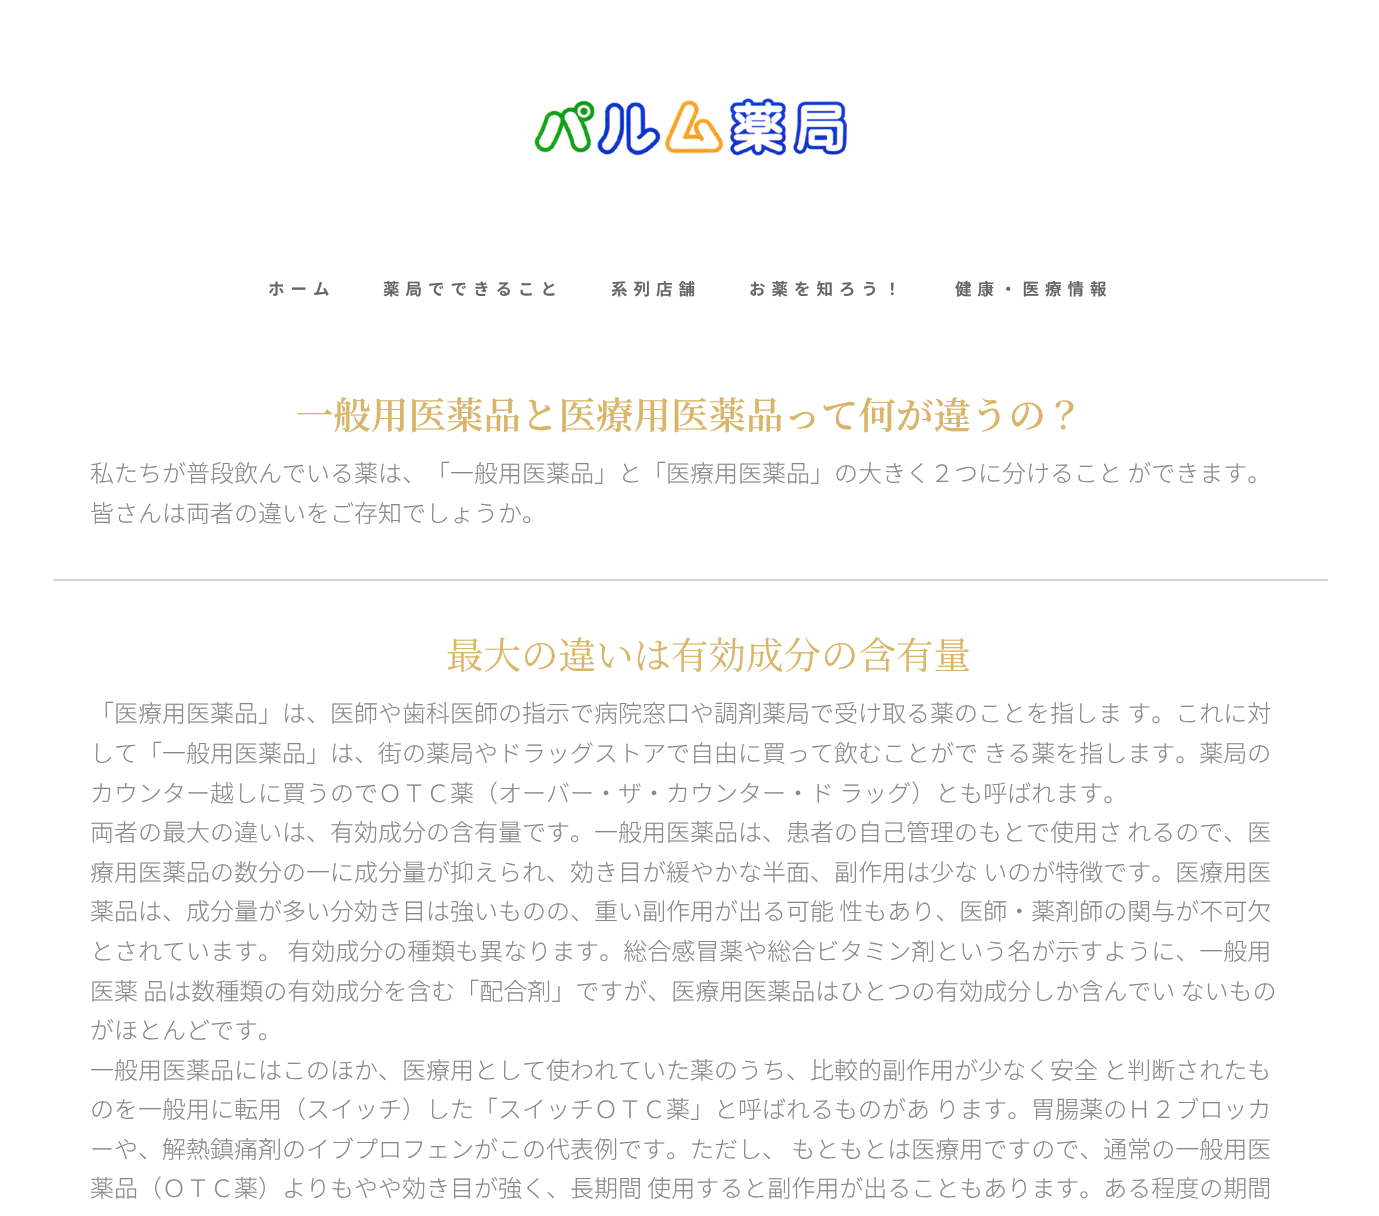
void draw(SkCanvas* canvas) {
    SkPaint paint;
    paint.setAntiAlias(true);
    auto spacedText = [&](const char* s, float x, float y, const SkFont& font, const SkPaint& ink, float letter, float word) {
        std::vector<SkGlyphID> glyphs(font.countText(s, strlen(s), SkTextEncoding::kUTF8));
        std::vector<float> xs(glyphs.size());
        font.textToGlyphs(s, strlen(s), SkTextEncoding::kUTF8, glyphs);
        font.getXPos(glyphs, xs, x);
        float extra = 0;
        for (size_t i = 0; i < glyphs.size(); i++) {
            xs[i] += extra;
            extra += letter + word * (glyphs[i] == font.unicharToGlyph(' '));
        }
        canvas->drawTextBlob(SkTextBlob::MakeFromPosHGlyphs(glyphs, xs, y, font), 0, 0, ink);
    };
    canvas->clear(0xFFFFFFFF);
    canvas->drawImageRect(SkImages::DeferredFromEncodedData(SkData::MakeFromFileName("img1.png")), SkRect::MakeXYWH(534, 98, 314, 58), SkSamplingOptions());
    SkFont font1(fontMgr->matchFamilyStyle("Noto Sans JP", SkFontStyle(600, SkFontStyle::kNormal_Width, SkFontStyle::kUpright_Slant)), 16.5f);
    font1.setSubpixel(true);
    paint.setColor(0xFF666666);
    spacedText("ホーム", 268, 295, font1, paint, 6, 0);
    spacedText("薬局でできること", 383, 295, font1, paint, 6, 0);
    spacedText("系列店舗", 611, 295, font1, paint, 6, 0);
    spacedText("お薬を知ろう！", 749, 295, font1, paint, 6, 0);
    spacedText("健康・医療情報", 955, 295, font1, paint, 6, 0);
    SkFont font2(fontMgr->matchFamilyStyle("Noto Serif JP", SkFontStyle(600, SkFontStyle::kNormal_Width, SkFontStyle::kUpright_Slant)), 37.5f);
    font2.setSubpixel(true);
    paint.setColor(0xFFD9B569);
    canvas->drawString("一般用医薬品と医療用医薬品って何が違うの？", 296, 429, font2, paint);
    SkFont font3(fontMgr->matchFamilyStyle("Noto Sans JP", SkFontStyle(300, SkFontStyle::kNormal_Width, SkFontStyle::kUpright_Slant)), 24);
    font3.setSubpixel(true);
    paint.setColor(0xFF888888);
    canvas->drawString("私たちが普段飲んでいる薬は、「一般用医薬品」と「医療用医薬品」の大きく２つに分けること ができます。", 90, 482, font3, paint);
    canvas->drawString("皆さんは両者の違いをご存知でしょうか。", 90, 522, font3, paint);
    paint.setColor(0xFFD4D4D4);
    canvas->drawRect(SkRect::MakeXYWH(53, 579, 1275, 2), paint);
    SkFont font4(fontMgr->matchFamilyStyle("Noto Serif JP", SkFontStyle::Normal()), 37.5f);
    font4.setSubpixel(true);
    paint.setColor(0xFFD9B569);
    canvas->drawString("最大の違いは有効成分の含有量", 446, 669, font4, paint);
    paint.setColor(0xFF888888);
    canvas->drawString("「医療用医薬品」は、医師や歯科医師の指示で病院窓口や調剤薬局で受け取る薬のことを指しま す。これに対", 90, 722, font3, paint);
    canvas->drawString("して「一般用医薬品」は、街の薬局やドラッグストアで自由に買って飲むことがで きる薬を指します。薬局の", 90, 762, font3, paint);
    canvas->drawString("カウンター越しに買うのでＯＴＣ薬（オーバー・ザ・カウンター・ド ラッグ）とも呼ばれます。", 90, 802, font3, paint);
    canvas->drawString("両者の最大の違いは、有効成分の含有量です。一般用医薬品は、患者の自己管理のもとで使用さ れるので、医", 90, 841, font3, paint);
    canvas->drawString("療用医薬品の数分の一に成分量が抑えられ、効き目が緩やかな半面、副作用は少な いのが特徴です。医療用医", 90, 881, font3, paint);
    canvas->drawString("薬品は、成分量が多い分効き目は強いものの、重い副作用が出る可能 性もあり、医師・薬剤師の関与が不可欠", 90, 920, font3, paint);
    canvas->drawString("とされています。 有効成分の種類も異なります。総合感冒薬や総合ビタミン剤という名が示すように、一般用", 90, 960, font3, paint);
    canvas->drawString("医薬 品は数種類の有効成分を含む「配合剤」ですが、医療用医薬品はひとつの有効成分しか含んでい ないもの", 90, 1000, font3, paint);
    canvas->drawString("がほとんどです。", 90, 1039, font3, paint);
    canvas->drawString("一般用医薬品にはこのほか、医療用として使われていた薬のうち、比較的副作用が少なく安全 と判断されたも", 90, 1079, font3, paint);
    canvas->drawString("のを一般用に転用（スイッチ）した「スイッチＯＴＣ薬」と呼ばれるものがあ ります。胃腸薬のＨ２ブロッカ", 90, 1118, font3, paint);
    canvas->drawString("ーや、解熱鎮痛剤のイブプロフェンがこの代表例です。ただし、 もともとは医療用ですので、通常の一般用医", 90, 1158, font3, paint);
    canvas->drawString("薬品（ＯＴＣ薬）よりもやや効き目が強く、長期間 使用すると副作用が出ることもあります。ある程度の期間", 90, 1197, font3, paint);
}
